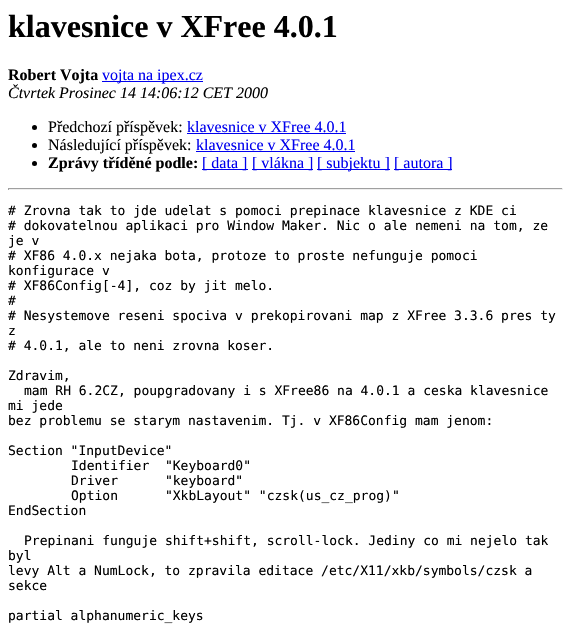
void draw(SkCanvas* canvas) {
    SkPaint paint;
    paint.setAntiAlias(true);
    canvas->clear(0xFFFFFFFF);
    SkFont font1(fontMgr->matchFamilyStyle("Liberation Serif", SkFontStyle::Bold()), 32);
    font1.setSubpixel(true);
    paint.setColor(0xFF000000);
    canvas->drawString("klavesnice v XFree 4.0.1", 8, 37, font1, paint);
    SkFont font2(fontMgr->matchFamilyStyle("Liberation Serif", SkFontStyle::Bold()), 16);
    font2.setSubpixel(true);
    canvas->drawString("Robert Vojta", 8, 80, font2, paint);
    paint.setColor(0xFF0000EE);
    canvas->drawRect(SkRect::MakeXYWH(102, 81, 101, 1), paint);
    SkFont font3(fontMgr->matchFamilyStyle("Liberation Serif", SkFontStyle::Normal()), 16);
    font3.setSubpixel(true);
    canvas->drawString("vojta na ipex.cz", 102, 80, font3, paint);
    SkFont font4(fontMgr->matchFamilyStyle("Liberation Serif", SkFontStyle::Italic()), 16);
    font4.setSubpixel(true);
    paint.setColor(0xFF000000);
    canvas->drawString("Čtvrtek Prosinec 14 14:06:12 CET 2000", 8, 98, font4, paint);
    canvas->drawCircle(34.5f, 127.5f, 2.5f, paint);
    canvas->drawString("Předchozí příspěvek:", 48, 132, font3, paint);
    paint.setColor(0xFF0000EE);
    canvas->drawString("klavesnice v XFree 4.0.1", 187, 132, font3, paint);
    canvas->drawRect(SkRect::MakeXYWH(187, 133, 159, 1), paint);
    paint.setColor(0xFF000000);
    canvas->drawCircle(34.5f, 145.5f, 2.5f, paint);
    canvas->drawString("Následující příspěvek:", 48, 150, font3, paint);
    paint.setColor(0xFF0000EE);
    canvas->drawString("klavesnice v XFree 4.0.1", 196, 150, font3, paint);
    canvas->drawRect(SkRect::MakeXYWH(196, 151, 159, 1), paint);
    paint.setColor(0xFF000000);
    canvas->drawCircle(34.5f, 163.5f, 2.5f, paint);
    canvas->drawString("Zprávy tříděné podle:", 48, 168, font2, paint);
    paint.setColor(0xFF0000EE);
    canvas->drawRect(SkRect::MakeXYWH(202, 169, 46, 1), paint);
    canvas->drawString("[ data ]", 202, 168, font3, paint);
    canvas->drawRect(SkRect::MakeXYWH(252, 169, 61, 1), paint);
    canvas->drawString("[ vlákna ]", 252, 168, font3, paint);
    canvas->drawRect(SkRect::MakeXYWH(317, 169, 73, 1), paint);
    canvas->drawString("[ subjektu ]", 317, 168, font3, paint);
    canvas->drawRect(SkRect::MakeXYWH(394, 169, 58, 1), paint);
    canvas->drawString("[ autora ]", 394, 168, font3, paint);
    paint.setColor(0xFF9F9F9F);
    canvas->drawRect(SkRect::MakeXYWH(8, 188, 555, 1), paint);
    paint.setColor(0xFFEEEEEE);
    canvas->drawRect(SkRect::MakeXYWH(562, 188, 1, 2), paint);
    canvas->drawRect(SkRect::MakeXYWH(8, 189, 555, 1), paint);
    paint.setColor(0xFF9F9F9F);
    canvas->drawRect(SkRect::MakeXYWH(8, 188, 1, 2), paint);
    SkFont font5(fontMgr->matchFamilyStyle("DejaVu Sans Mono", SkFontStyle::Normal()), 13);
    font5.setSubpixel(true);
    paint.setColor(0xFF000000);
    canvas->drawString("# Zrovna tak to jde udelat s pomoci prepinace klavesnice z KDE ci", 8, 215, font5, paint);
    canvas->drawString("# dokovatelnou aplikaci pro Window Maker. Nic o ale nemeni na tom, ze", 8, 230, font5, paint);
    canvas->drawString("je v", 8, 245, font5, paint);
    canvas->drawString("# XF86 4.0.x nejaka bota, protoze to proste nefunguje pomoci", 8, 260, font5, paint);
    canvas->drawString("konfigurace v", 8, 275, font5, paint);
    canvas->drawString("# XF86Config[-4], coz by jit melo.", 8, 290, font5, paint);
    canvas->drawString("#", 8, 305, font5, paint);
    canvas->drawString("# Nesystemove reseni spociva v prekopirovani map z XFree 3.3.6 pres ty", 8, 320, font5, paint);
    canvas->drawString("z", 8, 335, font5, paint);
    canvas->drawString("# 4.0.1, ale to neni zrovna koser.", 8, 350, font5, paint);
    canvas->drawString("Zdravim,", 8, 380, font5, paint);
    canvas->drawString("mam RH 6.2CZ, poupgradovany i s XFree86 na 4.0.1 a ceska klavesnice", 24, 395, font5, paint);
    canvas->drawString("mi jede", 8, 410, font5, paint);
    canvas->drawString("bez problemu se starym nastavenim. Tj. v XF86Config mam jenom:", 8, 425, font5, paint);
    canvas->drawString("Section \"InputDevice\"", 8, 455, font5, paint);
    canvas->drawString("Identifier  \"Keyboard0\"", 71, 470, font5, paint);
    canvas->drawString("Driver      \"keyboard\"", 71, 485, font5, paint);
    canvas->drawString("Option      \"XkbLayout\" \"czsk(us_cz_prog)\"", 71, 500, font5, paint);
    canvas->drawString("EndSection", 8, 515, font5, paint);
    canvas->drawString("Prepinani funguje shift+shift, scroll-lock. Jediny co mi nejelo tak", 24, 545, font5, paint);
    canvas->drawString("byl", 8, 560, font5, paint);
    canvas->drawString("levy Alt a NumLock, to zpravila editace /etc/X11/xkb/symbols/czsk a", 8, 575, font5, paint);
    canvas->drawString("sekce", 8, 590, font5, paint);
    canvas->drawString("partial alphanumeric_keys", 8, 620, font5, paint);
}
